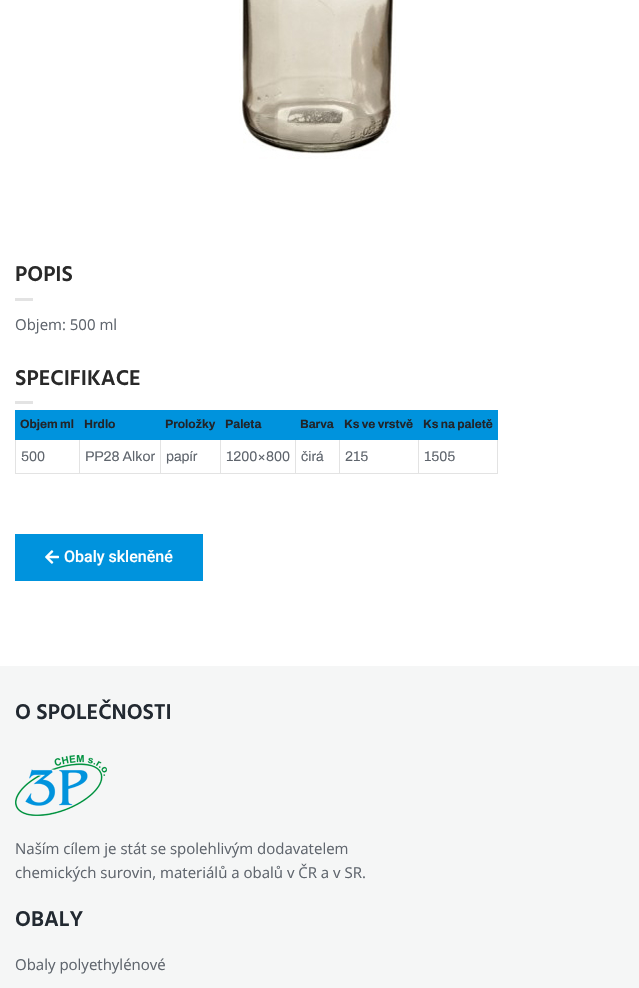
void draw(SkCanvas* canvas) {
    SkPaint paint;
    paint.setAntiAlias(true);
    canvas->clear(0xFFFFFFFF);
    canvas->drawImageRect(SkImages::DeferredFromEncodedData(SkData::MakeFromFileName("img1.png")), SkRect::MakeXYWH(239, 0, 161, 159), SkSamplingOptions());
    SkFont font1(fontMgr->matchFamilyStyle("Hind", SkFontStyle(600, SkFontStyle::kNormal_Width, SkFontStyle::kUpright_Slant)), 22);
    font1.setSubpixel(true);
    paint.setColor(0xFF292929);
    canvas->drawString("POPIS", 15, 281, font1, paint);
    paint.setColor(0xFFE3E3E3);
    canvas->drawRect(SkRect::MakeXYWH(15, 298, 18, 3), paint);
    SkFont font2(fontMgr->matchFamilyStyle("Open Sans", SkFontStyle::Normal()), 15);
    font2.setSubpixel(true);
    paint.setColor(0xFF5F656D);
    canvas->drawString("Objem: 500 ml", 15, 330, font2, paint);
    paint.setColor(0xFF292929);
    canvas->drawString("SPECIFIKACE", 15, 385, font1, paint);
    paint.setColor(0xFFE3E3E3);
    canvas->drawRect(SkRect::MakeXYWH(15, 401, 18, 3), paint);
    paint.setColor(0xFF0093DD);
    canvas->drawRect(SkRect::MakeXYWH(15, 410, 483, 30), paint);
    SkFont font3(fontMgr->matchFamilyStyle("Archivo", SkFontStyle::Bold()), 12);
    font3.setSubpixel(true);
    paint.setColor(0xFF212429);
    canvas->drawString("Objem ml", 20, 428, font3, paint);
    canvas->drawString("Hrdlo", 84, 428, font3, paint);
    canvas->drawString("Proložky", 165, 428, font3, paint);
    canvas->drawString("Paleta", 225, 428, font3, paint);
    canvas->drawString("Barva", 300, 428, font3, paint);
    canvas->drawString("Ks ve vrstvě", 344, 428, font3, paint);
    canvas->drawString("Ks na paletě", 423, 428, font3, paint);
    paint.setColor(0xFFE3E3E3);
    canvas->drawRect(SkRect::MakeXYWH(15, 473, 403, 1), paint);
    canvas->drawRect(SkRect::MakeXYWH(15, 440, 1, 34), paint);
    SkFont font4(fontMgr->matchFamilyStyle("Archivo", SkFontStyle::Normal()), 14);
    font4.setSubpixel(true);
    paint.setColor(0xFF5F656D);
    canvas->drawString("500", 21, 461, font4, paint);
    paint.setColor(0xFFE3E3E3);
    canvas->drawRect(SkRect::MakeXYWH(79, 440, 1, 34), paint);
    paint.setColor(0xFF5F656D);
    canvas->drawString("PP28 Alkor", 85, 461, font4, paint);
    paint.setColor(0xFFE3E3E3);
    canvas->drawRect(SkRect::MakeXYWH(160, 440, 1, 34), paint);
    paint.setColor(0xFF5F656D);
    canvas->drawString("papír", 166, 461, font4, paint);
    paint.setColor(0xFFE3E3E3);
    canvas->drawRect(SkRect::MakeXYWH(220, 440, 1, 34), paint);
    paint.setColor(0xFF5F656D);
    canvas->drawString("1200×800", 226, 461, font4, paint);
    paint.setColor(0xFFE3E3E3);
    canvas->drawRect(SkRect::MakeXYWH(295, 440, 1, 34), paint);
    paint.setColor(0xFF5F656D);
    canvas->drawString("čirá", 301, 461, font4, paint);
    paint.setColor(0xFFE3E3E3);
    canvas->drawRect(SkRect::MakeXYWH(339, 440, 1, 34), paint);
    paint.setColor(0xFF5F656D);
    canvas->drawString("215", 345, 461, font4, paint);
    paint.setColor(0xFFE3E3E3);
    canvas->drawRect(SkRect::MakeXYWH(497, 440, 1, 34), paint);
    canvas->drawRect(SkRect::MakeXYWH(418, 473, 80, 1), paint);
    canvas->drawRect(SkRect::MakeXYWH(418, 440, 1, 34), paint);
    paint.setColor(0xFF5F656D);
    canvas->drawString("1505", 424, 461, font4, paint);
    paint.setColor(0xFF0093DD);
    canvas->drawRect(SkRect::MakeXYWH(15, 534, 188, 47), paint);
    canvas->drawImageRect(SkImages::DeferredFromEncodedData(SkData::MakeFromFileName("img2.png")), SkRect::MakeXYWH(45, 550, 14, 14), SkSamplingOptions());
    SkFont font5(fontMgr->matchFamilyStyle("Roboto", SkFontStyle(500, SkFontStyle::kNormal_Width, SkFontStyle::kUpright_Slant)), 16);
    font5.setSubpixel(true);
    paint.setColor(0xFFFFFFFF);
    canvas->drawString("Obaly skleněné", 64, 562, font5, paint);
    paint.setColor(0xFFF5F6F6);
    canvas->drawRect(SkRect::MakeXYWH(0, 666, 639, 322), paint);
    paint.setColor(0xFF222931);
    canvas->drawString("O SPOLEČNOSTI", 15, 719, font1, paint);
    canvas->drawImageRect(SkImages::DeferredFromEncodedData(SkData::MakeFromFileName("img3.png")), SkRect::MakeXYWH(15, 755, 92, 61), SkSamplingOptions());
    paint.setColor(0xFF5F656D);
    canvas->drawString("Naším cílem je stát se spolehlivým dodavatelem", 15, 854, font2, paint);
    canvas->drawString("chemických surovin, materiálů a obalů v ČR a v SR.", 15, 878, font2, paint);
    paint.setColor(0xFF222931);
    canvas->drawString("OBALY", 15, 926, font1, paint);
    paint.setColor(0xFF5F656D);
    canvas->drawString("Obaly polyethylénové", 15, 970, font2, paint);
}
